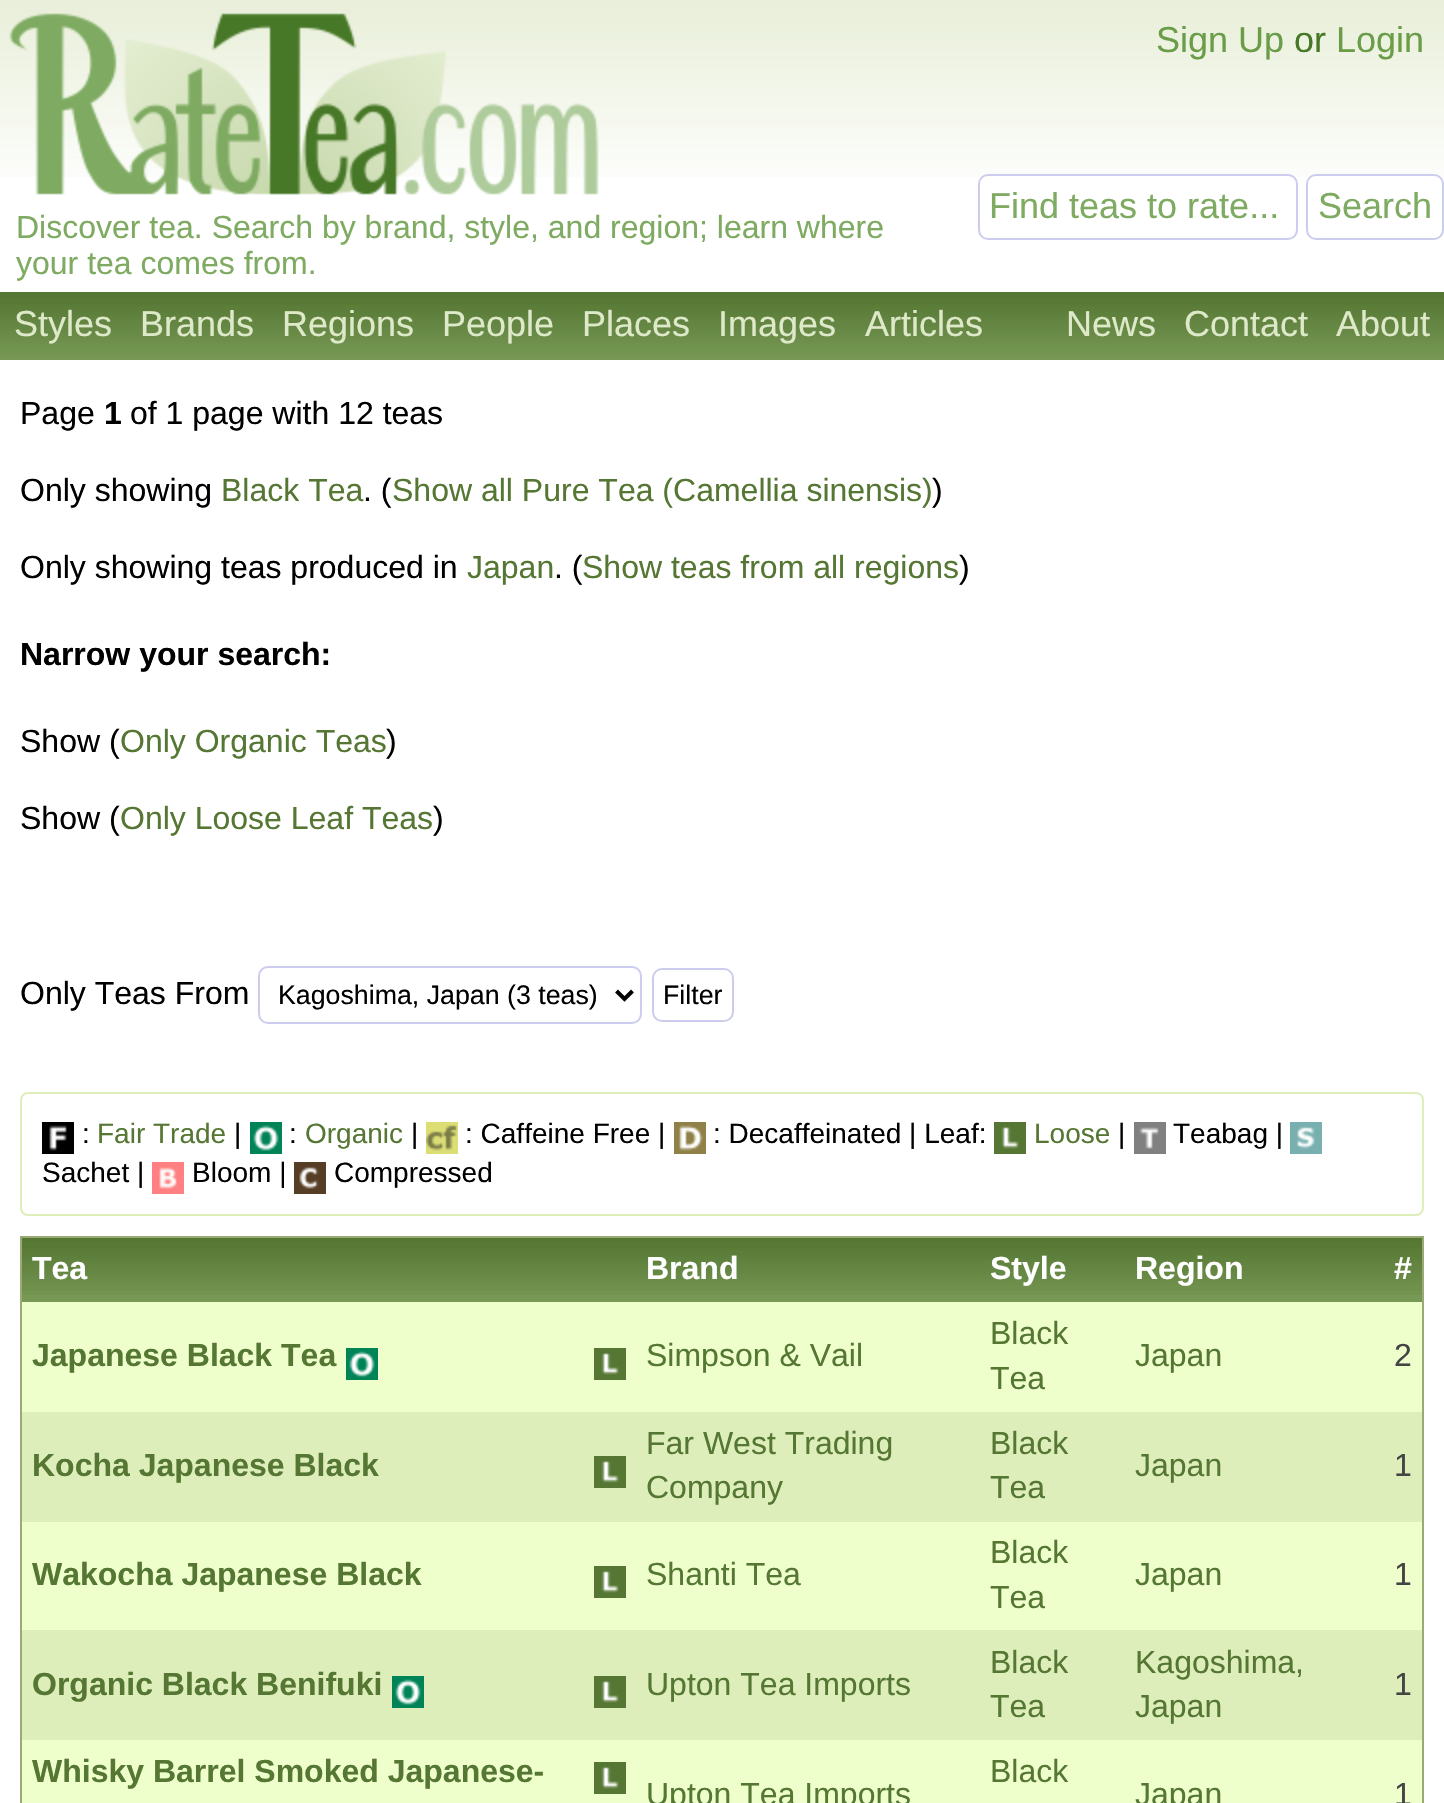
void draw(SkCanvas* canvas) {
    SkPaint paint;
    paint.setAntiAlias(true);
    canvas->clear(0xFFFFFFFF);
    canvas->drawImageRect(SkImages::DeferredFromEncodedData(SkData::MakeFromFileName("img1.png")), SkRect::MakeXYWH(0, 0, 1444, 177), SkSamplingOptions());
    canvas->drawImageRect(SkImages::DeferredFromEncodedData(SkData::MakeFromFileName("img2.png")), SkRect::MakeXYWH(9, 13, 590, 182), SkSamplingOptions());
    SkFont font1(fontMgr->matchFamilyStyle("Liberation Sans", SkFontStyle::Normal()), 36);
    font1.setSubpixel(true);
    paint.setColor(0xFF6B9D49);
    canvas->drawString("Sign Up", 1156, 52, font1, paint);
    paint.setColor(0xFF477827);
    canvas->drawString("or", 1294, 52, font1, paint);
    paint.setColor(0xFF6B9D49);
    canvas->drawString("Login", 1336, 52, font1, paint);
    paint.setColor(0xFFFFFFFF);
    canvas->drawRoundRect(SkRect::MakeXYWH(979, 175, 318, 64), 9, 9, paint);
    paint.setStyle(SkPaint::kStroke_Style);
    paint.setStrokeWidth(2);
    paint.setColor(0xFFCCCCEE);
    canvas->drawRoundRect(SkRect::MakeXYWH(979, 175, 318, 64), 9, 9, paint);
    paint.setStyle(SkPaint::kFill_Style);
    paint.setColor(0xFF7EAB61);
    canvas->drawString("Find teas to rate...", 989, 218, font1, paint);
    paint.setColor(0xFFFFFFFF);
    canvas->drawRoundRect(SkRect::MakeXYWH(1307, 175, 136, 64), 9, 9, paint);
    paint.setStyle(SkPaint::kStroke_Style);
    paint.setColor(0xFFCCCCEE);
    canvas->drawRoundRect(SkRect::MakeXYWH(1307, 175, 136, 64), 9, 9, paint);
    paint.setStyle(SkPaint::kFill_Style);
    paint.setColor(0xFF7EAB61);
    canvas->drawString("Search", 1318, 218, font1, paint);
    SkFont font2(fontMgr->matchFamilyStyle("Liberation Sans", SkFontStyle::Normal()), 32);
    font2.setSubpixel(true);
    canvas->drawString("Discover tea. Search by brand, style, and region; learn where", 16, 238, font2, paint);
    canvas->drawString("your tea comes from.", 16, 274, font2, paint);
    canvas->drawImageRect(SkImages::DeferredFromEncodedData(SkData::MakeFromFileName("img3.png")), SkRect::MakeXYWH(0, 292, 1444, 68), SkSamplingOptions());
    paint.setColor(0xFFDEE9C9);
    canvas->drawString("Styles", 14, 336, font1, paint);
    canvas->drawString("Brands", 140, 336, font1, paint);
    canvas->drawString("Regions", 282, 336, font1, paint);
    canvas->drawString("People", 442, 336, font1, paint);
    canvas->drawString("Places", 582, 336, font1, paint);
    canvas->drawString("Images", 718, 336, font1, paint);
    canvas->drawString("Articles", 865, 336, font1, paint);
    canvas->drawString("News", 1066, 336, font1, paint);
    canvas->drawString("Contact", 1184, 336, font1, paint);
    canvas->drawString("About", 1336, 336, font1, paint);
    paint.setColor(0xFF000000);
    canvas->drawString("Page", 20, 424, font2, paint);
    SkFont font3(fontMgr->matchFamilyStyle("Liberation Sans", SkFontStyle::Bold()), 32);
    font3.setSubpixel(true);
    canvas->drawString("1", 104, 424, font3, paint);
    canvas->drawString("of 1 page with 12 teas", 130, 424, font2, paint);
    canvas->drawString("Only showing", 20, 501, font2, paint);
    paint.setColor(0xFF557733);
    canvas->drawString("Black Tea", 221, 501, font2, paint);
    paint.setColor(0xFF000000);
    canvas->drawString(". (", 363, 501, font2, paint);
    paint.setColor(0xFF557733);
    canvas->drawString("Show all Pure Tea (Camellia sinensis)", 392, 501, font2, paint);
    paint.setColor(0xFF000000);
    canvas->drawString(")", 932, 501, font2, paint);
    canvas->drawString("Only showing teas produced in", 20, 578, font2, paint);
    paint.setColor(0xFF557733);
    canvas->drawString("Japan", 467, 578, font2, paint);
    paint.setColor(0xFF000000);
    canvas->drawString(". (", 554, 578, font2, paint);
    paint.setColor(0xFF557733);
    canvas->drawString("Show teas from all regions", 582, 578, font2, paint);
    paint.setColor(0xFF000000);
    canvas->drawString(")", 959, 578, font2, paint);
    canvas->drawString("Narrow your search:", 20, 665, font3, paint);
    canvas->drawString("Show (", 20, 752, font2, paint);
    paint.setColor(0xFF557733);
    canvas->drawString("Only Organic Teas", 120, 752, font2, paint);
    paint.setColor(0xFF000000);
    canvas->drawString(")", 386, 752, font2, paint);
    canvas->drawString("Show (", 20, 829, font2, paint);
    paint.setColor(0xFF557733);
    canvas->drawString("Only Loose Leaf Teas", 120, 829, font2, paint);
    paint.setColor(0xFF000000);
    canvas->drawString(")", 433, 829, font2, paint);
    canvas->drawString("Only Teas From", 20, 1004, font2, paint);
    paint.setStyle(SkPaint::kStroke_Style);
    paint.setColor(0xFFCCCCEE);
    canvas->drawRoundRect(SkRect::MakeXYWH(259, 967, 382, 56), 9, 9, paint);
    paint.setStrokeWidth(4);
    paint.setColor(0xFF000000);
    canvas->drawPath(SkPathBuilder().moveTo(616.5f, 991).lineTo(624.5f, 999).lineTo(632.5f, 991).detach(), paint);
    SkFont font4(fontMgr->matchFamilyStyle("Liberation Sans", SkFontStyle::Normal()), 26.75f);
    font4.setSubpixel(true);
    paint.setStyle(SkPaint::kFill_Style);
    canvas->drawString("Kagoshima, Japan (3 teas)", 278, 1004, font4, paint);
    paint.setStyle(SkPaint::kStroke_Style);
    paint.setStrokeWidth(2);
    paint.setColor(0xFFCCCCEE);
    canvas->drawRoundRect(SkRect::MakeXYWH(653, 969, 80, 52), 9, 9, paint);
    paint.setStyle(SkPaint::kFill_Style);
    paint.setColor(0xFF000000);
    canvas->drawString("Filter", 663, 1004, font4, paint);
    paint.setStyle(SkPaint::kStroke_Style);
    paint.setColor(0xFFDDEEBB);
    canvas->drawRoundRect(SkRect::MakeXYWH(21, 1093, 1402, 122), 7, 7, paint);
    canvas->drawImageRect(SkImages::DeferredFromEncodedData(SkData::MakeFromFileName("img4.png")), SkRect::MakeXYWH(42, 1122, 32, 32), SkSamplingOptions());
    SkFont font5(fontMgr->matchFamilyStyle("Liberation Sans", SkFontStyle::Normal()), 28);
    font5.setSubpixel(true);
    paint.setStyle(SkPaint::kFill_Style);
    paint.setColor(0xFF000000);
    canvas->drawString(":", 82, 1143, font5, paint);
    paint.setColor(0xFF557733);
    canvas->drawString("Fair Trade", 97, 1143, font5, paint);
    paint.setColor(0xFF000000);
    canvas->drawString("|", 234, 1143, font5, paint);
    canvas->drawImageRect(SkImages::DeferredFromEncodedData(SkData::MakeFromFileName("img5.png")), SkRect::MakeXYWH(250, 1122, 32, 32), SkSamplingOptions());
    canvas->drawString(":", 289, 1143, font5, paint);
    paint.setColor(0xFF557733);
    canvas->drawString("Organic", 305, 1143, font5, paint);
    paint.setColor(0xFF000000);
    canvas->drawString("|", 411, 1143, font5, paint);
    canvas->drawImageRect(SkImages::DeferredFromEncodedData(SkData::MakeFromFileName("img6.png")), SkRect::MakeXYWH(426, 1122, 32, 32), SkSamplingOptions());
    canvas->drawString(": Caffeine Free |", 465, 1143, font5, paint);
    canvas->drawImageRect(SkImages::DeferredFromEncodedData(SkData::MakeFromFileName("img7.png")), SkRect::MakeXYWH(674, 1122, 32, 32), SkSamplingOptions());
    canvas->drawString(": Decaffeinated | Leaf:", 713, 1143, font5, paint);
    canvas->drawImageRect(SkImages::DeferredFromEncodedData(SkData::MakeFromFileName("img8.png")), SkRect::MakeXYWH(994, 1122, 32, 32), SkSamplingOptions());
    paint.setColor(0xFF557733);
    canvas->drawString("Loose", 1034, 1143, font5, paint);
    paint.setColor(0xFF000000);
    canvas->drawString("|", 1118, 1143, font5, paint);
    canvas->drawImageRect(SkImages::DeferredFromEncodedData(SkData::MakeFromFileName("img9.png")), SkRect::MakeXYWH(1134, 1122, 32, 32), SkSamplingOptions());
    canvas->drawString("Teabag |", 1173, 1143, font5, paint);
    canvas->drawImageRect(SkImages::DeferredFromEncodedData(SkData::MakeFromFileName("img10.png")), SkRect::MakeXYWH(1290, 1122, 32, 32), SkSamplingOptions());
    canvas->drawString("Sachet |", 42, 1182, font5, paint);
    canvas->drawImageRect(SkImages::DeferredFromEncodedData(SkData::MakeFromFileName("img11.png")), SkRect::MakeXYWH(152, 1162, 32, 32), SkSamplingOptions());
    canvas->drawString("Bloom |", 192, 1182, font5, paint);
    canvas->drawImageRect(SkImages::DeferredFromEncodedData(SkData::MakeFromFileName("img12.png")), SkRect::MakeXYWH(294, 1162, 32, 32), SkSamplingOptions());
    canvas->drawString("Compressed", 334, 1182, font5, paint);
    paint.setColor(0xFF99AA77);
    canvas->drawRect(SkRect::MakeXYWH(20, 1236, 1404, 2), paint);
    canvas->drawRect(SkRect::MakeXYWH(1422, 1236, 2, 567), paint);
    canvas->drawRect(SkRect::MakeXYWH(20, 1236, 2, 567), paint);
    paint.setColor(0xFF779955);
    canvas->drawRect(SkRect::MakeXYWH(22, 1295, 1400, 7), paint);
    canvas->drawImageRect(SkImages::DeferredFromEncodedData(SkData::MakeFromFileName("img13.png")), SkRect::MakeXYWH(22, 1238, 614, 57), SkSamplingOptions());
    paint.setColor(0xFFFFFFFF);
    canvas->drawString("Tea", 32, 1279, font3, paint);
    canvas->drawImageRect(SkImages::DeferredFromEncodedData(SkData::MakeFromFileName("img14.png")), SkRect::MakeXYWH(636, 1238, 344, 57), SkSamplingOptions());
    canvas->drawString("Brand", 646, 1279, font3, paint);
    canvas->drawImageRect(SkImages::DeferredFromEncodedData(SkData::MakeFromFileName("img15.png")), SkRect::MakeXYWH(980, 1238, 146, 57), SkSamplingOptions());
    canvas->drawString("Style", 990, 1279, font3, paint);
    canvas->drawImageRect(SkImages::DeferredFromEncodedData(SkData::MakeFromFileName("img16.png")), SkRect::MakeXYWH(1126, 1238, 258, 57), SkSamplingOptions());
    canvas->drawString("Region", 1135, 1279, font3, paint);
    canvas->drawImageRect(SkImages::DeferredFromEncodedData(SkData::MakeFromFileName("img17.png")), SkRect::MakeXYWH(1384, 1238, 38, 57), SkSamplingOptions());
    canvas->drawString("#", 1394, 1279, font3, paint);
    paint.setColor(0xFFEEFFCC);
    canvas->drawRect(SkRect::MakeXYWH(22, 1302, 1400, 110), paint);
    paint.setColor(0xFF557733);
    canvas->drawString("Japanese Black Tea", 32, 1366, font3, paint);
    canvas->drawImageRect(SkImages::DeferredFromEncodedData(SkData::MakeFromFileName("img5.png")), SkRect::MakeXYWH(346, 1348, 32, 32), SkSamplingOptions());
    canvas->drawImageRect(SkImages::DeferredFromEncodedData(SkData::MakeFromFileName("img8.png")), SkRect::MakeXYWH(594, 1348, 32, 32), SkSamplingOptions());
    canvas->drawString("Simpson & Vail", 646, 1366, font2, paint);
    canvas->drawString("Black", 990, 1344, font2, paint);
    canvas->drawString("Tea", 990, 1389, font2, paint);
    canvas->drawString("Japan", 1135, 1366, font2, paint);
    paint.setColor(0xFF444444);
    canvas->drawString("2", 1394, 1366, font2, paint);
    paint.setColor(0xFFDDEEBB);
    canvas->drawRect(SkRect::MakeXYWH(22, 1412, 1400, 110), paint);
    paint.setColor(0xFF557733);
    canvas->drawString("Kocha Japanese Black", 32, 1476, font3, paint);
    canvas->drawImageRect(SkImages::DeferredFromEncodedData(SkData::MakeFromFileName("img8.png")), SkRect::MakeXYWH(594, 1456, 32, 32), SkSamplingOptions());
    canvas->drawString("Far West Trading", 646, 1454, font2, paint);
    canvas->drawString("Company", 646, 1498, font2, paint);
    canvas->drawString("Black", 990, 1454, font2, paint);
    canvas->drawString("Tea", 990, 1498, font2, paint);
    canvas->drawString("Japan", 1135, 1476, font2, paint);
    paint.setColor(0xFF444444);
    canvas->drawString("1", 1394, 1476, font2, paint);
    paint.setColor(0xFFEEFFCC);
    canvas->drawRect(SkRect::MakeXYWH(22, 1522, 1400, 108), paint);
    paint.setColor(0xFF557733);
    canvas->drawString("Wakocha Japanese Black", 32, 1585, font3, paint);
    canvas->drawImageRect(SkImages::DeferredFromEncodedData(SkData::MakeFromFileName("img8.png")), SkRect::MakeXYWH(594, 1566, 32, 32), SkSamplingOptions());
    canvas->drawString("Shanti Tea", 646, 1585, font2, paint);
    canvas->drawString("Black", 990, 1563, font2, paint);
    canvas->drawString("Tea", 990, 1608, font2, paint);
    canvas->drawString("Japan", 1135, 1585, font2, paint);
    paint.setColor(0xFF444444);
    canvas->drawString("1", 1394, 1585, font2, paint);
    paint.setColor(0xFFDDEEBB);
    canvas->drawRect(SkRect::MakeXYWH(22, 1630, 1400, 110), paint);
    paint.setColor(0xFF557733);
    canvas->drawString("Organic Black Benifuki", 32, 1695, font3, paint);
    canvas->drawImageRect(SkImages::DeferredFromEncodedData(SkData::MakeFromFileName("img5.png")), SkRect::MakeXYWH(392, 1676, 32, 32), SkSamplingOptions());
    canvas->drawImageRect(SkImages::DeferredFromEncodedData(SkData::MakeFromFileName("img8.png")), SkRect::MakeXYWH(594, 1676, 32, 32), SkSamplingOptions());
    canvas->drawString("Upton Tea Imports", 646, 1695, font2, paint);
    canvas->drawString("Black", 990, 1673, font2, paint);
    canvas->drawString("Tea", 990, 1717, font2, paint);
    canvas->drawString("Kagoshima,", 1135, 1673, font2, paint);
    canvas->drawString("Japan", 1135, 1717, font2, paint);
    paint.setColor(0xFF444444);
    canvas->drawString("1", 1394, 1695, font2, paint);
    paint.setColor(0xFFEEFFCC);
    canvas->drawRect(SkRect::MakeXYWH(22, 1740, 1400, 63), paint);
    paint.setColor(0xFF557733);
    canvas->drawString("Whisky Barrel Smoked Japanese-", 32, 1782, font3, paint);
    canvas->drawImageRect(SkImages::DeferredFromEncodedData(SkData::MakeFromFileName("img8.png")), SkRect::MakeXYWH(594, 1762, 32, 32), SkSamplingOptions());
    canvas->drawString("Black", 990, 1782, font2, paint);
    canvas->drawString("Upton Tea Imports", 646, 1805, font2, paint);
    canvas->drawString("Japan", 1135, 1805, font2, paint);
    paint.setColor(0xFF444444);
    canvas->drawString("1", 1394, 1805, font2, paint);
}
